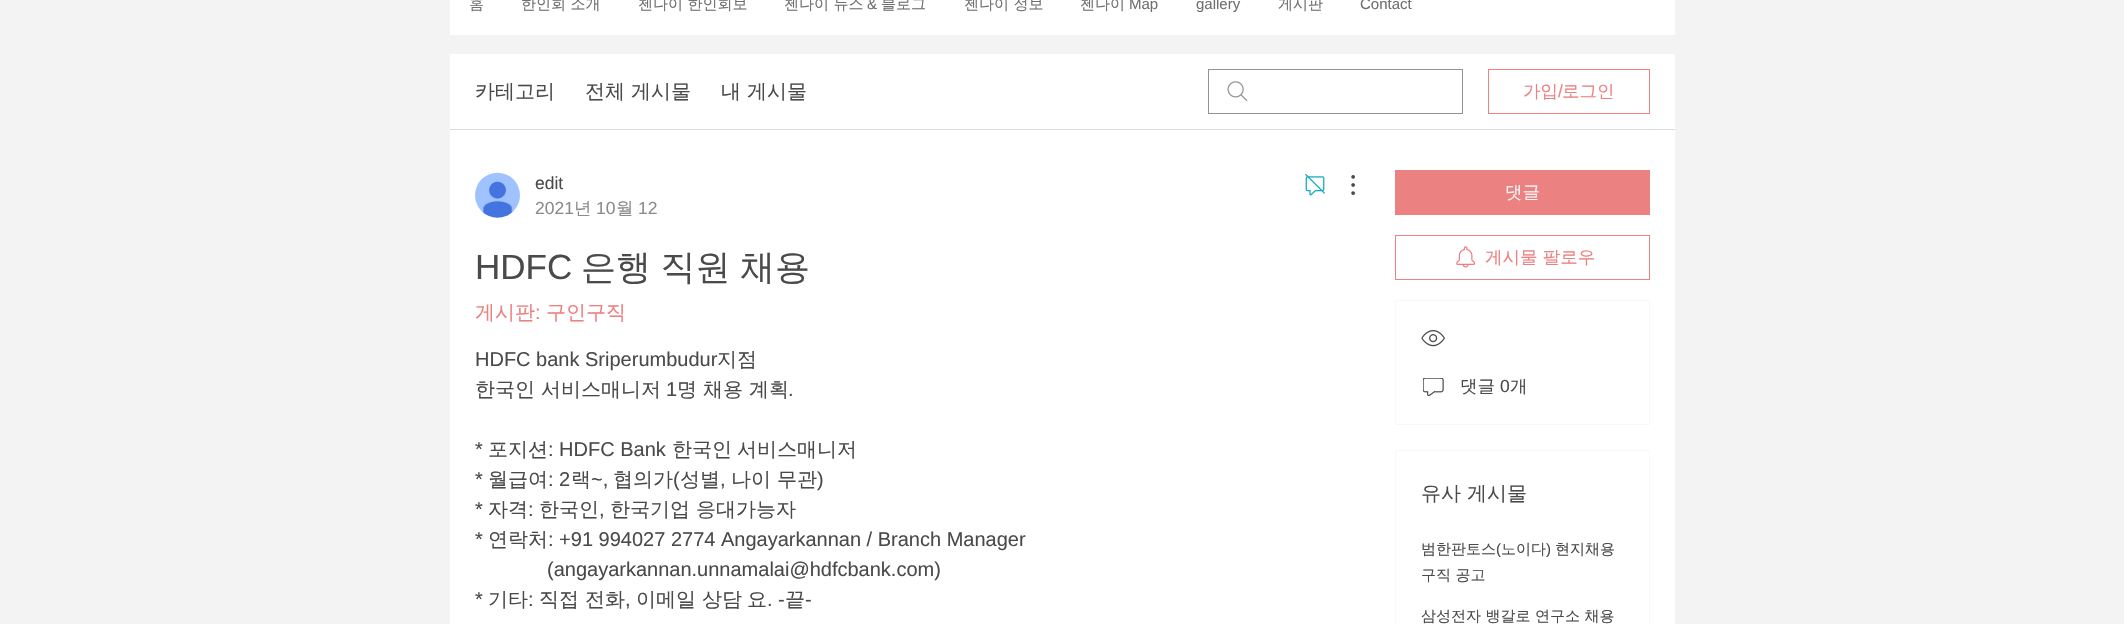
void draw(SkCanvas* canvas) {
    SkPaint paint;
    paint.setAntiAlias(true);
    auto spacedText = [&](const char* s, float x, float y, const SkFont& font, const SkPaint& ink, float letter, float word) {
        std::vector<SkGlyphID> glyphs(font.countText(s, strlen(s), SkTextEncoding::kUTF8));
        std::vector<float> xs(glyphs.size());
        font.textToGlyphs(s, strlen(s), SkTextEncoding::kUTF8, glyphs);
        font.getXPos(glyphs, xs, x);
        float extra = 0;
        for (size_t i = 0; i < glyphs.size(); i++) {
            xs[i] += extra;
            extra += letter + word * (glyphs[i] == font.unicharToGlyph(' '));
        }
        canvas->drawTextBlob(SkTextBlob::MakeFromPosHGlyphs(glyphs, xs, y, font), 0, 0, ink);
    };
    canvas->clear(0xFFF3F3F3);
    paint.setColor(0xFFFFFFFF);
    canvas->drawRect(SkRect::MakeXYWH(450, 0, 1225, 35), paint);
    SkFont font1(fontMgr->matchFamilyStyle("WenQuanYi Zen Hei", SkFontStyle(500, SkFontStyle::kNormal_Width, SkFontStyle::kUpright_Slant)), 15);
    font1.setSubpixel(true);
    paint.setColor(0xFF717070);
    canvas->drawString("홈", 469, 9, font1, paint);
    canvas->drawString("한인회 소개", 521, 9, font1, paint);
    canvas->drawString("첸나이 한인회보", 638, 9, font1, paint);
    canvas->drawString("첸나이 뉴스", 784, 9, font1, paint);
    SkFont font2(fontMgr->matchFamilyStyle("Liberation Sans", SkFontStyle::Normal()), 15);
    font2.setSubpixel(true);
    canvas->drawString("&", 867, 9, font2, paint);
    canvas->drawString("블로그", 881, 9, font1, paint);
    canvas->drawString("첸나이 정보", 964, 9, font1, paint);
    canvas->drawString("첸나이", 1080, 9, font1, paint);
    canvas->drawString("Map", 1129, 9, font2, paint);
    canvas->drawString("gallery", 1196, 9, font2, paint);
    canvas->drawString("게시판", 1278, 9, font1, paint);
    canvas->drawString("Contact", 1360, 9, font2, paint);
    paint.setColor(0xFFFFFFFF);
    canvas->drawRect(SkRect::MakeXYWH(450, 54, 1225, 570), paint);
    paint.setColor(0xFFDBDBDB);
    canvas->drawRect(SkRect::MakeXYWH(450, 129, 1225, 1), paint);
    SkFont font3(fontMgr->matchFamilyStyle("WenQuanYi Zen Hei", SkFontStyle(500, SkFontStyle::kNormal_Width, SkFontStyle::kUpright_Slant)), 20);
    font3.setSubpixel(true);
    paint.setColor(0xFF4A4A4A);
    canvas->drawString("카테고리", 475, 98, font3, paint);
    canvas->drawString("전체 게시물", 585, 98, font3, paint);
    canvas->drawString("내 게시물", 721, 98, font3, paint);
    canvas->drawImageRect(SkImages::DeferredFromEncodedData(SkData::MakeFromFileName("img1.png")), SkRect::MakeXYWH(1227, 81, 21, 21), SkSamplingOptions());
    paint.setStyle(SkPaint::kStroke_Style);
    paint.setStrokeWidth(1);
    paint.setColor(0xFF929292);
    canvas->drawRect(SkRect::MakeXYWH(1208.5f, 69.5f, 254, 44), paint);
    paint.setColor(0xFFEC8181);
    canvas->drawRect(SkRect::MakeXYWH(1488.5f, 69.5f, 161, 44), paint);
    SkFont font4(fontMgr->matchFamilyStyle("WenQuanYi Zen Hei", SkFontStyle(500, SkFontStyle::kNormal_Width, SkFontStyle::kUpright_Slant)), 17.5f);
    font4.setSubpixel(true);
    paint.setStyle(SkPaint::kFill_Style);
    canvas->drawString("가입", 1523, 97, font4, paint);
    SkFont font5(fontMgr->matchFamilyStyle("Liberation Sans", SkFontStyle::Normal()), 17.5f);
    font5.setSubpixel(true);
    canvas->drawString("/", 1558, 97, font5, paint);
    canvas->drawString("로그인", 1562, 97, font4, paint);
    canvas->drawImageRect(SkImages::DeferredFromEncodedData(SkData::MakeFromFileName("img2.png")), SkRect::MakeXYWH(475, 172, 45, 46), SkSamplingOptions());
    paint.setColor(0xFF4A4A4A);
    canvas->drawString("edit", 535, 189, font5, paint);
    paint.setColor(0xFF8B8B8B);
    canvas->drawString("2021", 535, 214, font5, paint);
    canvas->drawString("년", 574, 214, font4, paint);
    canvas->drawString("10", 596, 214, font5, paint);
    canvas->drawString("월", 616, 214, font4, paint);
    canvas->drawString("12", 638, 214, font5, paint);
    canvas->drawImageRect(SkImages::DeferredFromEncodedData(SkData::MakeFromFileName("img3.png")), SkRect::MakeXYWH(1305, 174, 20, 22), SkSamplingOptions());
    canvas->drawImageRect(SkImages::DeferredFromEncodedData(SkData::MakeFromFileName("img4.png")), SkRect::MakeXYWH(1351, 175, 4, 20), SkSamplingOptions());
    SkFont font6(fontMgr->matchFamilyStyle("Liberation Sans", SkFontStyle::Normal()), 35);
    font6.setSubpixel(true);
    paint.setColor(0xFF4A4A4A);
    canvas->drawString("HDFC", 475, 279, font6, paint);
    SkFont font7(fontMgr->matchFamilyStyle("WenQuanYi Zen Hei", SkFontStyle(500, SkFontStyle::kNormal_Width, SkFontStyle::kUpright_Slant)), 35);
    font7.setSubpixel(true);
    spacedText("은행 직원 채용", 581, 279, font7, paint, 0, -1);
    paint.setColor(0xFFEC8181);
    canvas->drawString("게시판", 475, 319, font3, paint);
    SkFont font8(fontMgr->matchFamilyStyle("Liberation Sans", SkFontStyle::Normal()), 20);
    font8.setSubpixel(true);
    canvas->drawString(":", 535, 319, font8, paint);
    canvas->drawString("구인구직", 546, 319, font3, paint);
    paint.setColor(0xFF4A4A4A);
    canvas->drawString("HDFC bank Sriperumbudur", 475, 366, font8, paint);
    canvas->drawString("지점", 717, 366, font3, paint);
    canvas->drawString("한국인 서비스매니저", 475, 396, font3, paint);
    canvas->drawString("1", 666, 396, font8, paint);
    canvas->drawString("명 채용 계획", 677, 396, font3, paint);
    canvas->drawString(".", 788, 396, font8, paint);
    canvas->drawString("*", 475, 456, font8, paint);
    canvas->drawString("포지션", 488, 456, font3, paint);
    canvas->drawString(": HDFC Bank", 548, 456, font8, paint);
    canvas->drawString("한국인", 672, 456, font3, paint);
    canvas->drawString("서비스매니저", 737, 456, font3, paint);
    canvas->drawString("*", 475, 486, font8, paint);
    canvas->drawString("월급여", 488, 486, font3, paint);
    canvas->drawString(": 2", 548, 486, font8, paint);
    canvas->drawString("랙", 571, 486, font3, paint);
    canvas->drawString("~,", 591, 486, font8, paint);
    canvas->drawString("협의가", 613, 486, font3, paint);
    canvas->drawString("(", 673, 486, font8, paint);
    canvas->drawString("성별", 680, 486, font3, paint);
    canvas->drawString(",", 720, 486, font8, paint);
    canvas->drawString("나이", 731, 486, font3, paint);
    canvas->drawString("무관", 777, 486, font3, paint);
    canvas->drawString(")", 817, 486, font8, paint);
    canvas->drawString("*", 475, 516, font8, paint);
    canvas->drawString("자격", 488, 516, font3, paint);
    canvas->drawString(":", 528, 516, font8, paint);
    canvas->drawString("한국인", 539, 516, font3, paint);
    canvas->drawString(",", 599, 516, font8, paint);
    canvas->drawString("한국기업 응대가능자", 610, 516, font3, paint);
    canvas->drawString("*", 475, 546, font8, paint);
    canvas->drawString("연락처", 488, 546, font3, paint);
    canvas->drawString(": +91 994027 2774 Angayarkannan / Branch Manager", 548, 546, font8, paint);
    canvas->drawString("(angayarkannan.unnamalai@hdfcbank.com)", 547, 576, font8, paint);
    canvas->drawString("*", 475, 606, font8, paint);
    canvas->drawString("기타", 488, 606, font3, paint);
    canvas->drawString(":", 528, 606, font8, paint);
    canvas->drawString("직접", 539, 606, font3, paint);
    canvas->drawString("전화", 585, 606, font3, paint);
    canvas->drawString("이메일", 636, 606, font3, paint);
    canvas->drawString("상담", 702, 606, font3, paint);
    canvas->drawString("요", 747, 606, font3, paint);
    canvas->drawString(". -", 767, 606, font8, paint);
    canvas->drawString("끝", 785, 606, font3, paint);
    canvas->drawString("-", 805, 606, font8, paint);
    canvas->drawString(",", 625, 606, font8, paint);
    paint.setColor(0xFFEC8181);
    canvas->drawRect(SkRect::MakeXYWH(1395, 170, 255, 45), paint);
    paint.setColor(0xFFF3F3F3);
    canvas->drawString("댓글", 1505, 198, font4, paint);
    paint.setStyle(SkPaint::kStroke_Style);
    paint.setColor(0xFFEC8181);
    canvas->drawRect(SkRect::MakeXYWH(1395.5f, 235.5f, 254, 44), paint);
    canvas->drawImageRect(SkImages::DeferredFromEncodedData(SkData::MakeFromFileName("img5.png")), SkRect::MakeXYWH(1456, 246, 19, 22), SkSamplingOptions());
    paint.setStyle(SkPaint::kFill_Style);
    canvas->drawString("게시물 팔로우", 1485, 263, font4, paint);
    paint.setStyle(SkPaint::kStroke_Style);
    paint.setColor(0xFFF9F8F8);
    canvas->drawRect(SkRect::MakeXYWH(1395.5f, 300.5f, 254, 124), paint);
    canvas->drawImageRect(SkImages::DeferredFromEncodedData(SkData::MakeFromFileName("img6.png")), SkRect::MakeXYWH(1421, 330, 24, 17), SkSamplingOptions());
    canvas->drawImageRect(SkImages::DeferredFromEncodedData(SkData::MakeFromFileName("img7.png")), SkRect::MakeXYWH(1423, 378, 21, 18), SkSamplingOptions());
    paint.setStyle(SkPaint::kFill_Style);
    paint.setColor(0xFF4A4A4A);
    canvas->drawString("댓글", 1460, 392, font4, paint);
    canvas->drawString("0", 1500, 392, font5, paint);
    canvas->drawString("개", 1510, 392, font4, paint);
    paint.setStyle(SkPaint::kStroke_Style);
    paint.setColor(0xFFF9F8F8);
    canvas->drawRect(SkRect::MakeXYWH(1395.5f, 450.5f, 254, 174), paint);
    paint.setStyle(SkPaint::kFill_Style);
    paint.setColor(0xFF4A4A4A);
    canvas->drawString("유사 게시물", 1421, 500, font3, paint);
    canvas->drawString("범한판토스", 1421, 554, font1, paint);
    canvas->drawString("(", 1496, 554, font2, paint);
    canvas->drawString("노이다", 1501, 554, font1, paint);
    canvas->drawString(")", 1546, 554, font2, paint);
    canvas->drawString("현지채용", 1555, 554, font1, paint);
    canvas->drawString("구직 공고", 1421, 580, font1, paint);
    canvas->drawString("삼성전자 뱅갈로 연구소 채용", 1421, 621, font1, paint);
}
